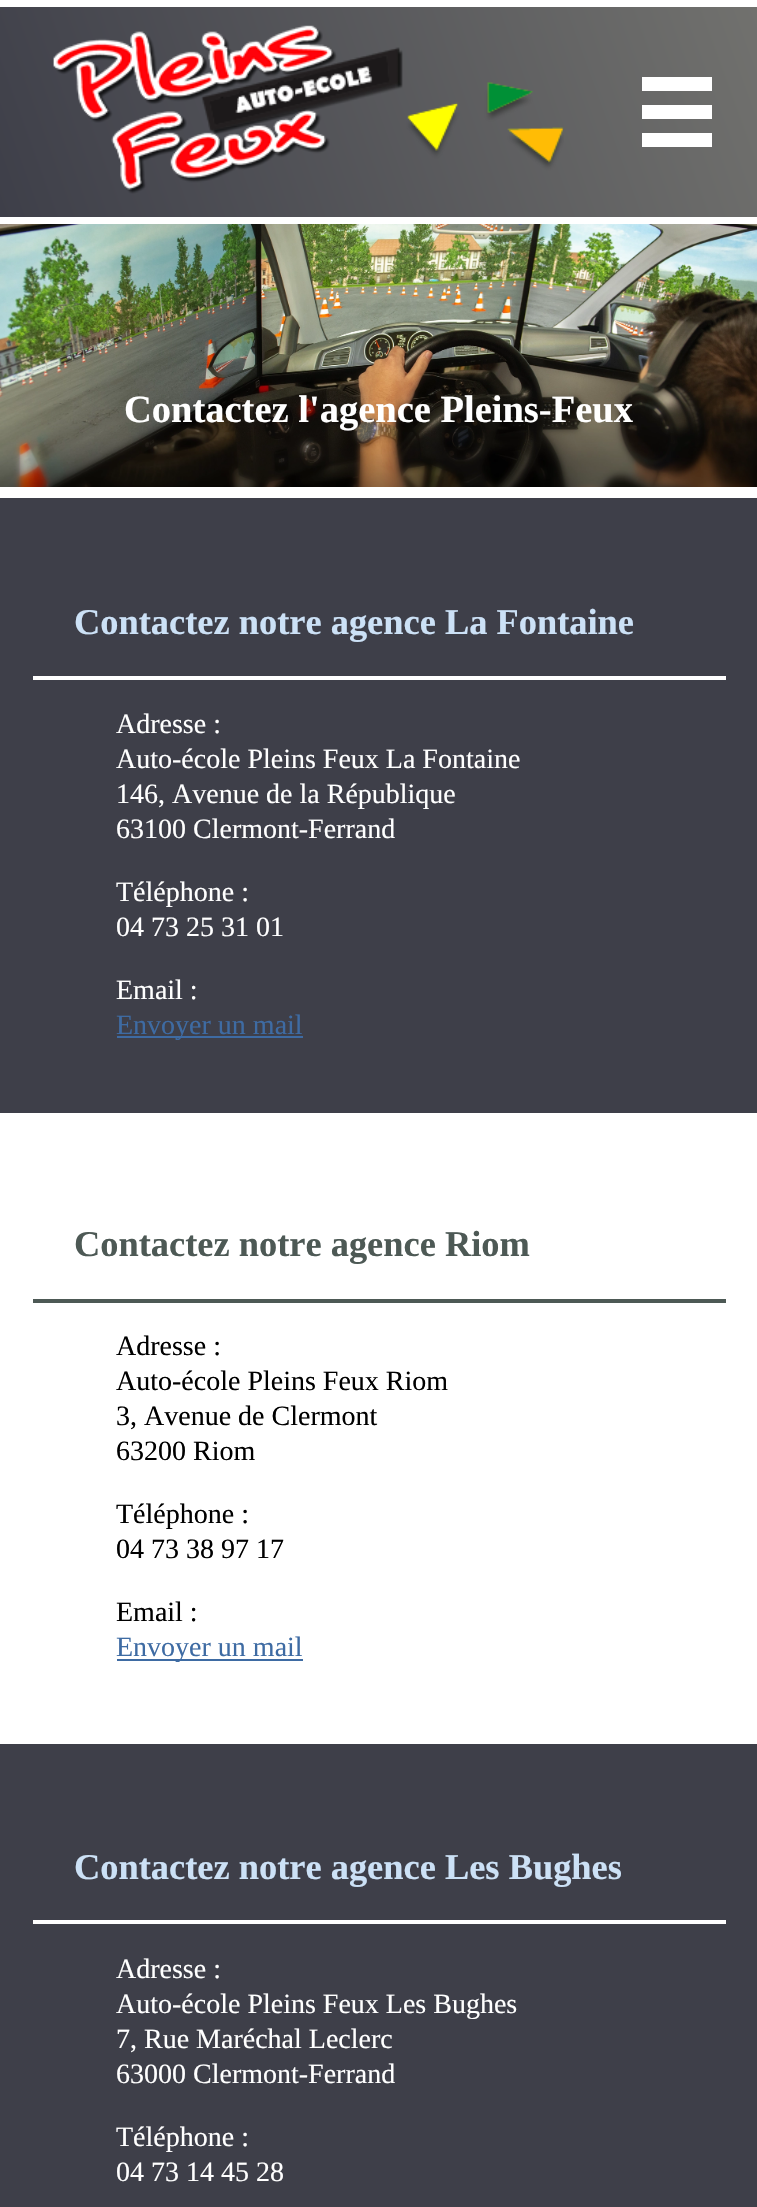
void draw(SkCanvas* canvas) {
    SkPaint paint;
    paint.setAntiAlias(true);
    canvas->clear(0xFF3E3F49);
    {
        const SkColor colors[] = {0xFF3E3F49, 0xFF71716E};
        const float stops[] = {0, 1};
        const SkPoint ends[] = {{11, 246}, {747, -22}};
        paint.setShader(SkGradientShader::MakeLinear(ends, colors, stops, 2, SkTileMode::kClamp));
        paint.setAlpha(255);
    }
    canvas->drawRect(SkRect::MakeXYWH(0, 7, 757, 210), paint);
    paint.setShader(nullptr);
    paint.setColor(0xFFFFFFFF);
    canvas->drawRect(SkRect::MakeXYWH(0, 0, 757, 7), paint);
    canvas->drawRect(SkRect::MakeXYWH(0, 217, 757, 7), paint);
    canvas->drawImageRect(SkImages::DeferredFromEncodedData(SkData::MakeFromFileName("img1.png")), SkRect::MakeXYWH(53, 25, 511, 169), SkSamplingOptions());
    canvas->drawRect(SkRect::MakeXYWH(642, 77, 70, 14), paint);
    canvas->drawRect(SkRect::MakeXYWH(642, 105, 70, 14), paint);
    canvas->drawRect(SkRect::MakeXYWH(642, 133, 70, 14), paint);
    canvas->drawImageRect(SkImages::DeferredFromEncodedData(SkData::MakeFromFileName("img2.png")), SkRect::MakeXYWH(0, 224, 757, 263), SkSamplingOptions());
    SkFont font1(fontMgr->matchFamilyStyle("Liberation Serif", SkFontStyle::Bold()), 38.5f);
    font1.setSubpixel(true);
    canvas->drawString("Contactez l'agence Pleins-Feux", 124, 422, font1, paint);
    canvas->drawRect(SkRect::MakeXYWH(0, 487, 757, 11), paint);
    canvas->drawRect(SkRect::MakeXYWH(0, 1113, 757, 631), paint);
    canvas->drawRect(SkRect::MakeXYWH(33, 676, 693, 4), paint);
    SkFont font2(fontMgr->matchFamilyStyle("Liberation Serif", SkFontStyle::Bold()), 36.4f);
    font2.setSubpixel(true);
    paint.setColor(0xFFCCE1F6);
    canvas->drawString("Contactez notre agence La Fontaine", 74, 634, font2, paint);
    SkFont font3(fontMgr->matchFamilyStyle("Liberation Serif", SkFontStyle::Normal()), 28);
    font3.setSubpixel(true);
    paint.setColor(0xFFFFFFFF);
    canvas->drawString("Adresse :", 116, 733, font3, paint);
    canvas->drawString("Auto-école Pleins Feux La Fontaine", 116, 768, font3, paint);
    canvas->drawString("146, Avenue de la République", 116, 803, font3, paint);
    canvas->drawString("63100 Clermont-Ferrand", 116, 838, font3, paint);
    canvas->drawString("Téléphone :", 116, 901, font3, paint);
    canvas->drawString("04 73 25 31 01", 116, 936, font3, paint);
    canvas->drawString("Email :", 116, 999, font3, paint);
    paint.setColor(0xFF3E6BA3);
    canvas->drawRect(SkRect::MakeXYWH(117, 1036, 186, 2), paint);
    canvas->drawString("Envoyer un mail", 116, 1034, font3, paint);
    paint.setColor(0xFF4D5955);
    canvas->drawRect(SkRect::MakeXYWH(33, 1299, 693, 4), paint);
    canvas->drawString("Contactez notre agence Riom", 74, 1256, font2, paint);
    paint.setColor(0xFF000000);
    canvas->drawString("Adresse :", 116, 1355, font3, paint);
    canvas->drawString("Auto-école Pleins Feux Riom", 116, 1390, font3, paint);
    canvas->drawString("3, Avenue de Clermont", 116, 1425, font3, paint);
    canvas->drawString("63200 Riom", 116, 1460, font3, paint);
    canvas->drawString("Téléphone :", 116, 1523, font3, paint);
    canvas->drawString("04 73 38 97 17", 116, 1558, font3, paint);
    canvas->drawString("Email :", 116, 1621, font3, paint);
    paint.setColor(0xFF3E6BA3);
    canvas->drawRect(SkRect::MakeXYWH(117, 1659, 186, 2), paint);
    canvas->drawString("Envoyer un mail", 116, 1656, font3, paint);
    paint.setColor(0xFFFFFFFF);
    canvas->drawRect(SkRect::MakeXYWH(33, 1920, 693, 4), paint);
    paint.setColor(0xFFCCE1F6);
    canvas->drawString("Contactez notre agence Les Bughes", 74, 1879, font2, paint);
    paint.setColor(0xFFFFFFFF);
    canvas->drawString("Adresse :", 116, 1978, font3, paint);
    canvas->drawString("Auto-école Pleins Feux Les Bughes", 116, 2013, font3, paint);
    canvas->drawString("7, Rue Maréchal Leclerc", 116, 2048, font3, paint);
    canvas->drawString("63000 Clermont-Ferrand", 116, 2083, font3, paint);
    canvas->drawString("Téléphone :", 116, 2146, font3, paint);
    canvas->drawString("04 73 14 45 28", 116, 2181, font3, paint);
}
